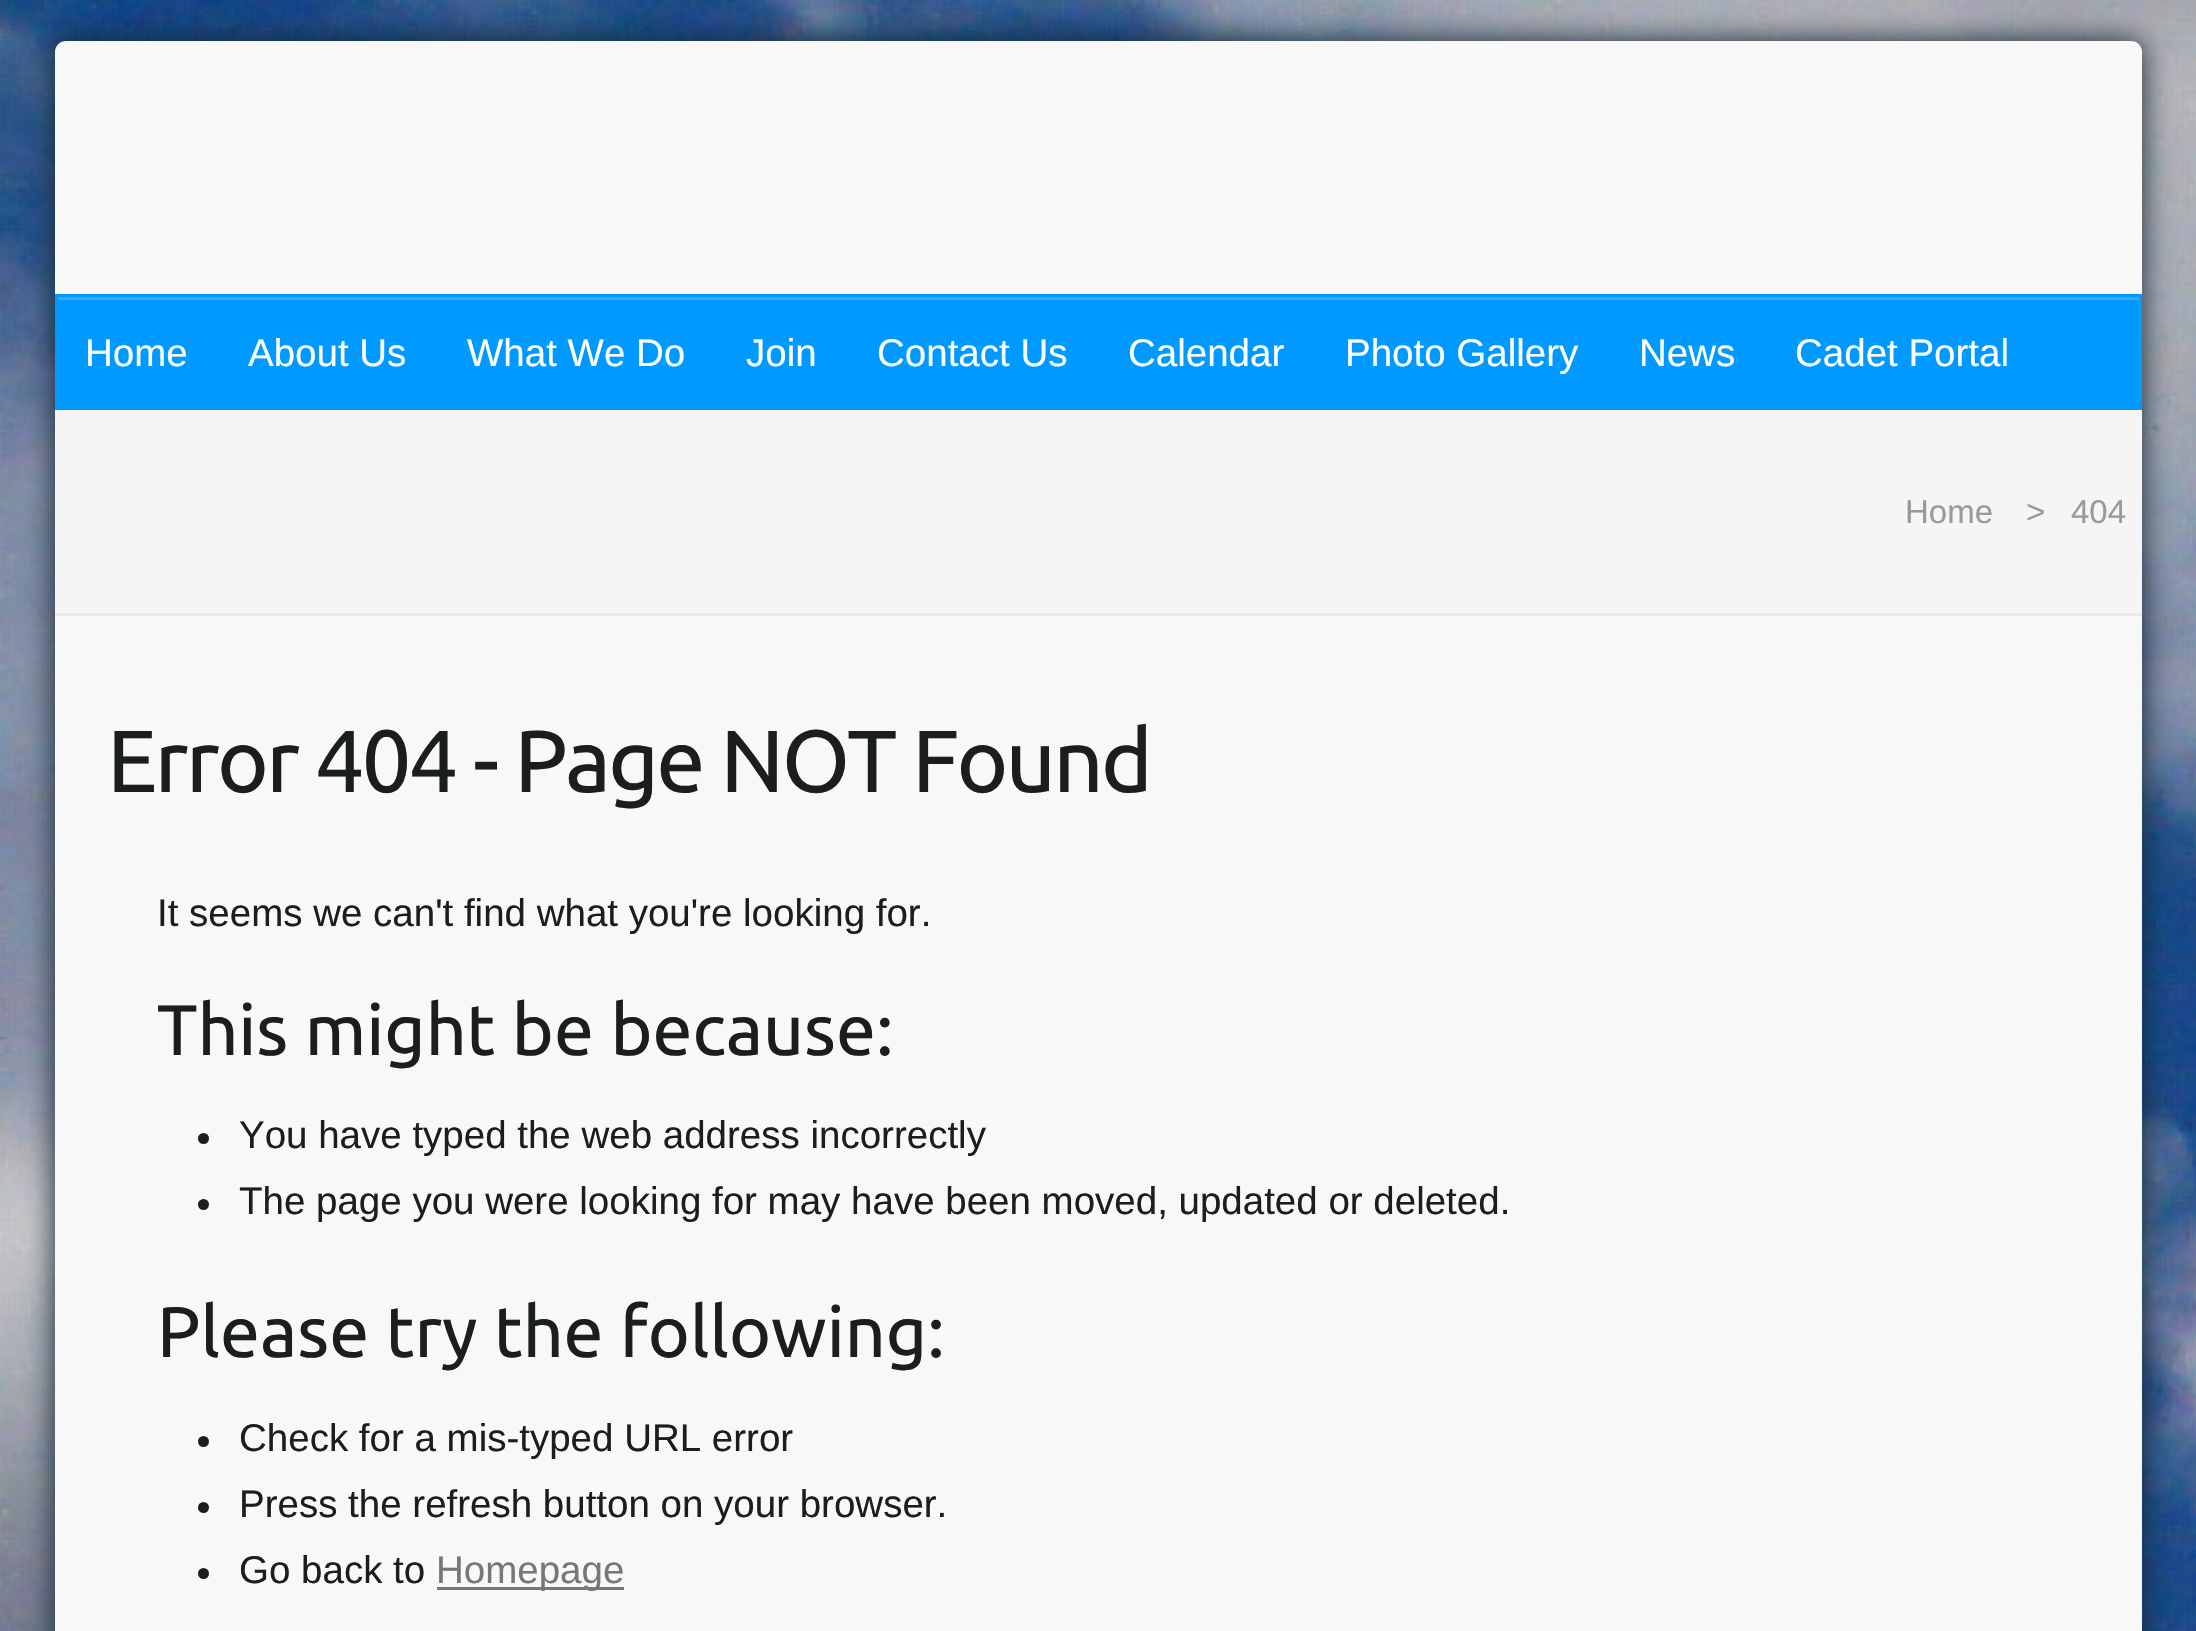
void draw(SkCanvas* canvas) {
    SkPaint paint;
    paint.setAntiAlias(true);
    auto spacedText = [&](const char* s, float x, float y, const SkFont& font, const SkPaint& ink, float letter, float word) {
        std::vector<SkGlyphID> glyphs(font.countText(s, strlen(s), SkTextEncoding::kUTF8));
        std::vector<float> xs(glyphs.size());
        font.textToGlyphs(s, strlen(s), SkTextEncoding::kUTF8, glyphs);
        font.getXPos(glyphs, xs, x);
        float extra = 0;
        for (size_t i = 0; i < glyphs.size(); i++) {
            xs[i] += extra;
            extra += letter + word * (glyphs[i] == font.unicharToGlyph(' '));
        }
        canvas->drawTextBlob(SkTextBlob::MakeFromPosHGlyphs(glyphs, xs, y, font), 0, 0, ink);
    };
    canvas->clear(0xFFFFFFFF);
    canvas->drawImageRect(SkImages::DeferredFromEncodedData(SkData::MakeFromFileName("img1.png")), SkRect::MakeXYWH(0, 0, 2196, 1631), SkSamplingOptions());
    paint.setColor(0xFF152634);
    paint.setMaskFilter(SkMaskFilter::MakeBlur(kNormal_SkBlurStyle, 15));
    canvas->drawRoundRect(SkRect::MakeXYWH(55, 41, 2087, 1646), 11, 11, paint);
    paint.setMaskFilter(nullptr);
    paint.setColor(0xFFF8F8F8);
    canvas->drawRoundRect(SkRect::MakeXYWH(55, 41, 2087, 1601), 11, 11, paint);
    paint.setColor(0xFF0099FF);
    canvas->drawRect(SkRect::MakeXYWH(58, 300, 2081, 107), paint);
    paint.setColor(0xFF33ADFF);
    canvas->drawRect(SkRect::MakeXYWH(58, 297, 2082, 3), paint);
    paint.setStyle(SkPaint::kStroke_Style);
    paint.setStrokeWidth(3);
    paint.setColor(0xFF0099FF);
    canvas->drawRect(SkRect::MakeXYWH(56.5f, 295.5f, 2084, 113), paint);
    SkFont font1(fontMgr->matchFamilyStyle("Liberation Sans", SkFontStyle::Normal()), 38.5f);
    font1.setSubpixel(true);
    paint.setStyle(SkPaint::kFill_Style);
    paint.setColor(0xFFFFFFFF);
    canvas->drawString("Home", 85, 366, font1, paint);
    canvas->drawString("About Us", 248, 366, font1, paint);
    canvas->drawString("What We Do", 467, 366, font1, paint);
    canvas->drawString("Join", 746, 366, font1, paint);
    canvas->drawString("Contact Us", 877, 366, font1, paint);
    canvas->drawString("Calendar", 1128, 366, font1, paint);
    canvas->drawString("Photo Gallery", 1345, 366, font1, paint);
    canvas->drawString("News", 1639, 366, font1, paint);
    canvas->drawString("Cadet Portal", 1795, 366, font1, paint);
    paint.setColor(0xFFF5F5F5);
    canvas->drawRect(SkRect::MakeXYWH(55, 410, 2087, 203), paint);
    paint.setColor(0xFFEAEAEA);
    canvas->drawRect(SkRect::MakeXYWH(55, 613, 2087, 3), paint);
    SkFont font2(fontMgr->matchFamilyStyle("Liberation Sans", SkFontStyle::Normal()), 33);
    font2.setSubpixel(true);
    paint.setColor(0xFF999999);
    canvas->drawString("Home", 1905, 523, font2, paint);
    canvas->drawString(">", 2026, 523, font2, paint);
    canvas->drawString("404", 2071, 523, font2, paint);
    SkFont font3(fontMgr->matchFamilyStyle("Ubuntu", SkFontStyle::Normal()), 88);
    font3.setSubpixel(true);
    paint.setColor(0xFF1B1E1F);
    spacedText("Error 404 - Page NOT Found", 107, 792, font3, paint, -2.75f, 0);
    canvas->drawString("It seems we can't find what you're looking for.", 157, 926, font1, paint);
    SkFont font4(fontMgr->matchFamilyStyle("Ubuntu", SkFontStyle::Normal()), 71.5f);
    font4.setSubpixel(true);
    canvas->drawString("This might be because:", 157, 1055, font4, paint);
    paint.setColor(0xFF1D1D1D);
    canvas->drawCircle(203.5f, 1138.5f, 5.5f, paint);
    paint.setColor(0xFF1B1E1F);
    canvas->drawString("You have typed the web address incorrectly", 239, 1148, font1, paint);
    paint.setColor(0xFF1D1D1D);
    canvas->drawCircle(203.5f, 1204.5f, 5.5f, paint);
    paint.setColor(0xFF1B1E1F);
    canvas->drawString("The page you were looking for may have been moved, updated or deleted.", 239, 1214, font1, paint);
    canvas->drawString("Please try the following:", 157, 1357, font4, paint);
    paint.setColor(0xFF1D1D1D);
    canvas->drawCircle(203.5f, 1441.5f, 5.5f, paint);
    paint.setColor(0xFF1B1E1F);
    canvas->drawString("Check for a mis-typed URL error", 239, 1451, font1, paint);
    paint.setColor(0xFF1D1D1D);
    canvas->drawCircle(203.5f, 1507.5f, 5.5f, paint);
    paint.setColor(0xFF1B1E1F);
    canvas->drawString("Press the refresh button on your browser.", 239, 1517, font1, paint);
    paint.setColor(0xFF1D1D1D);
    canvas->drawCircle(203.5f, 1573.5f, 5.5f, paint);
    paint.setColor(0xFF1B1E1F);
    canvas->drawString("Go back to", 239, 1583, font1, paint);
    paint.setColor(0xFF777777);
    canvas->drawRect(SkRect::MakeXYWH(437, 1587, 187, 3), paint);
    canvas->drawString("Homepage", 436, 1583, font1, paint);
}
